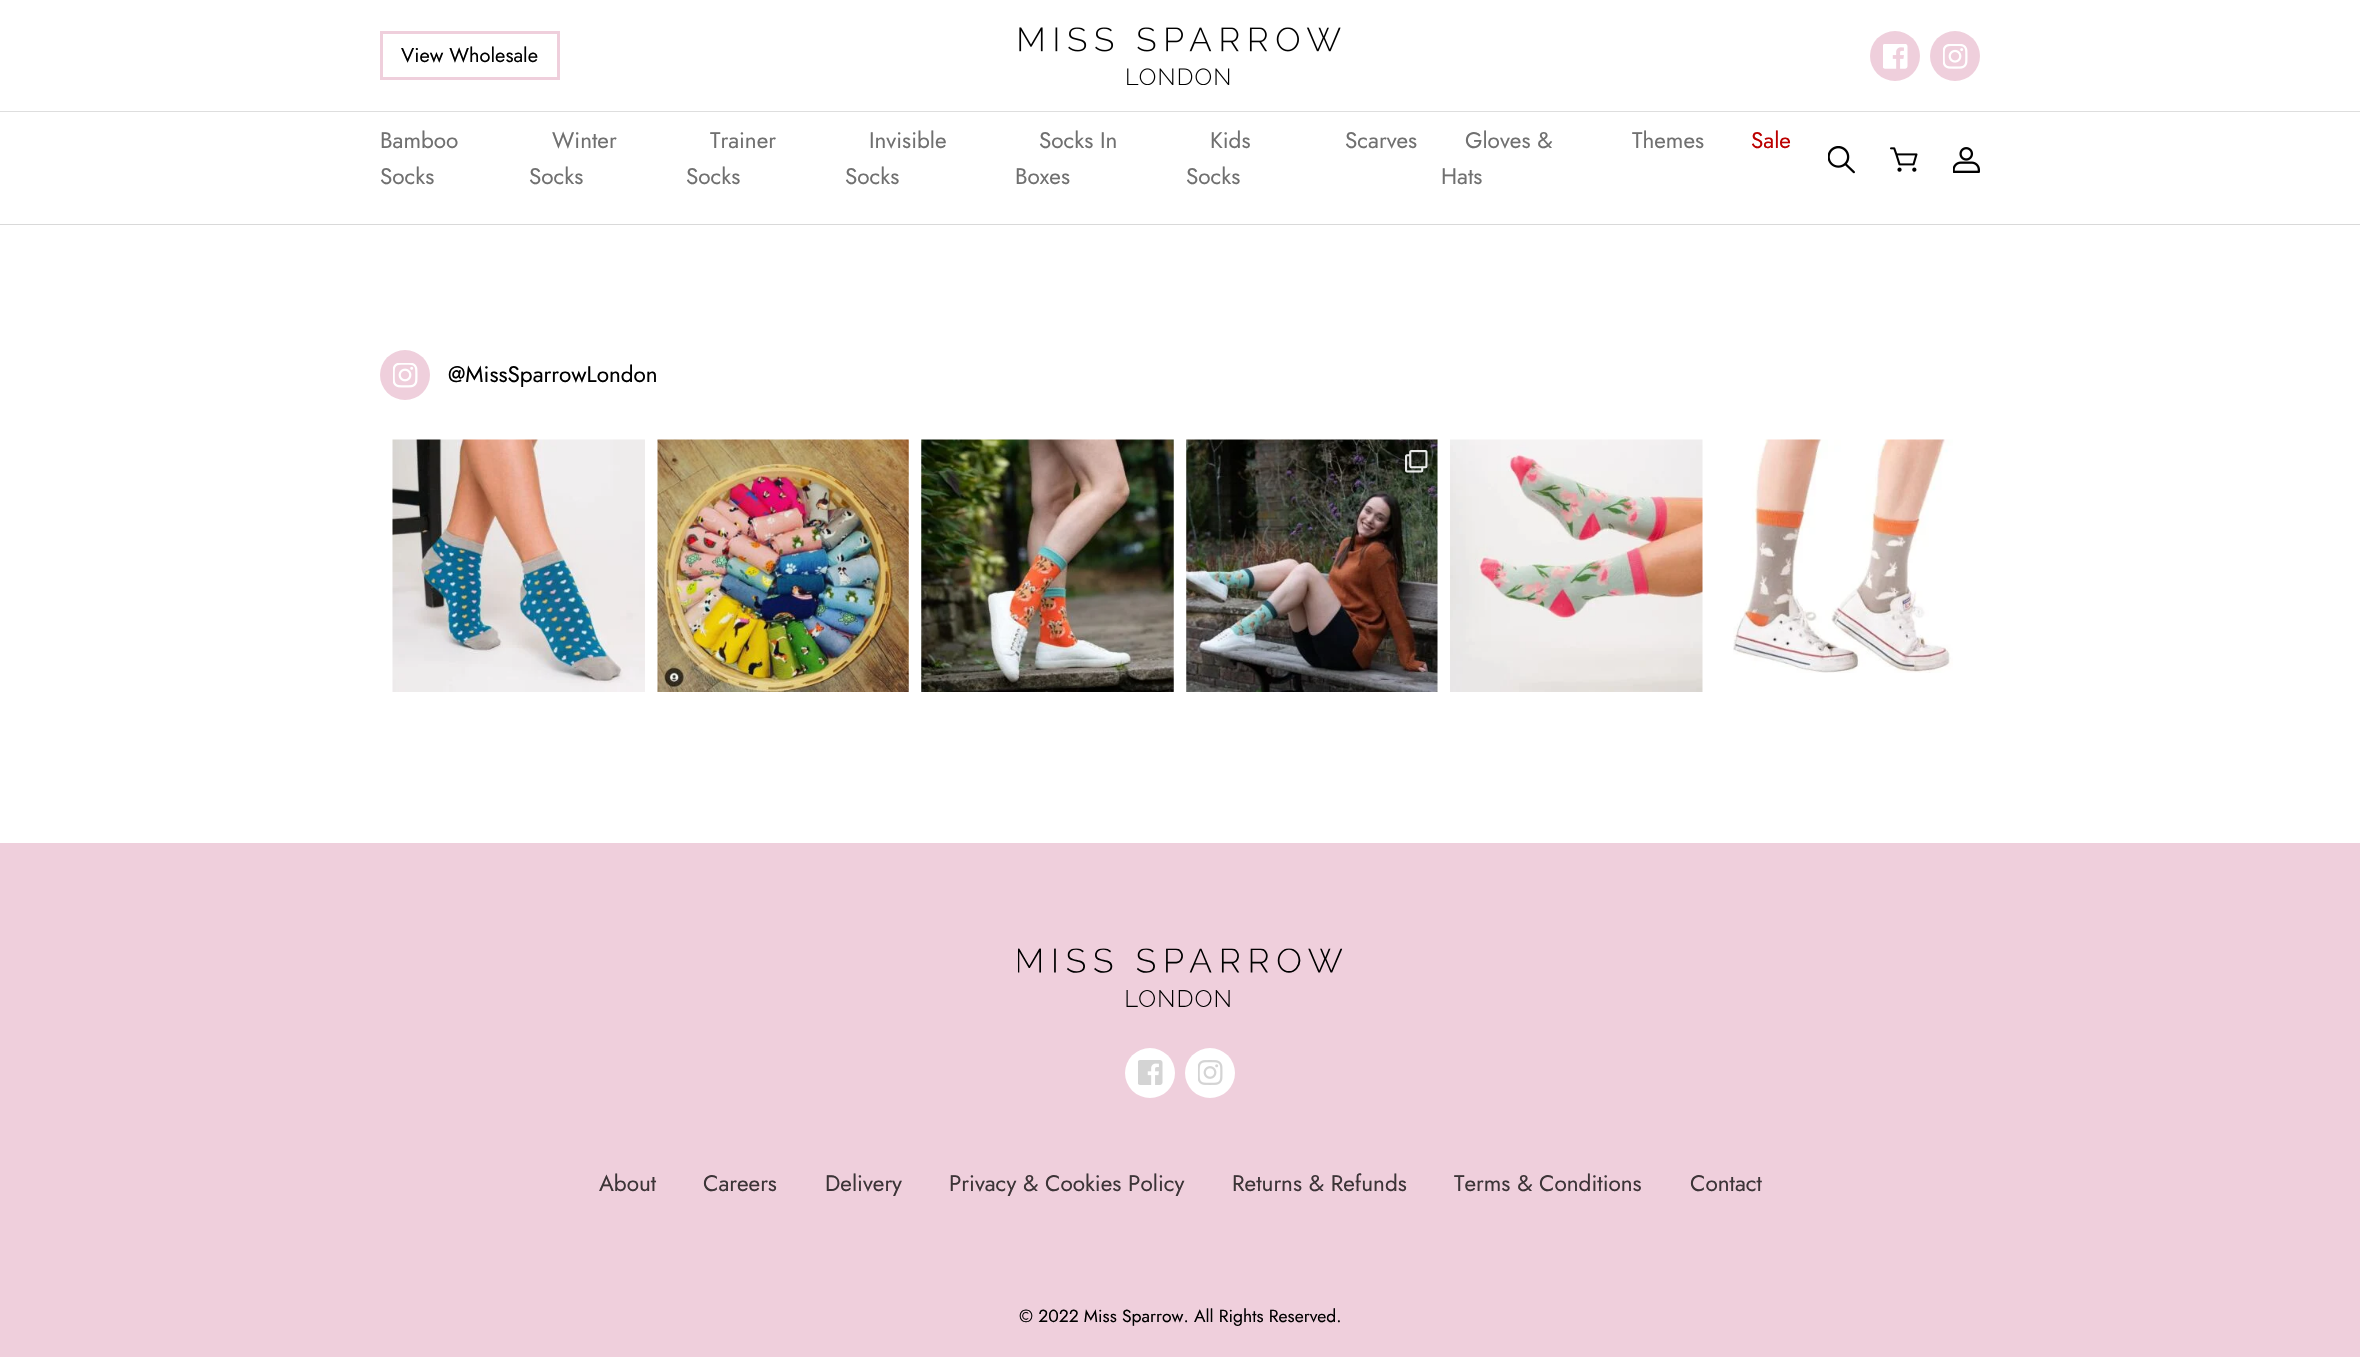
void draw(SkCanvas* canvas) {
    SkPaint paint;
    paint.setAntiAlias(true);
    canvas->clear(0xFFFFFFFF);
    paint.setColor(0xFFDEDEDE);
    canvas->drawRect(SkRect::MakeXYWH(0, 111, 2360, 1), paint);
    paint.setStyle(SkPaint::kStroke_Style);
    paint.setStrokeWidth(3);
    paint.setColor(0xFFEFCFDC);
    canvas->drawRect(SkRect::MakeXYWH(381.5f, 32.5f, 177, 46), paint);
    SkFont font1(fontMgr->matchFamilyStyle("Jost", SkFontStyle::Normal()), 20);
    font1.setSubpixel(true);
    paint.setStyle(SkPaint::kFill_Style);
    paint.setColor(0xFF000000);
    canvas->drawString("View Wholesale", 401, 62, font1, paint);
    canvas->drawImageRect(SkImages::DeferredFromEncodedData(SkData::MakeFromFileName("img1.png")), SkRect::MakeXYWH(1019, 27, 322, 58), SkSamplingOptions());
    paint.setColor(0xFFEFCFDC);
    canvas->drawCircle(1895, 56, 25, paint);
    canvas->drawImageRect(SkImages::DeferredFromEncodedData(SkData::MakeFromFileName("img2.png")), SkRect::MakeXYWH(1883, 44, 25, 25), SkSamplingOptions());
    canvas->drawCircle(1955, 56, 25, paint);
    canvas->drawImageRect(SkImages::DeferredFromEncodedData(SkData::MakeFromFileName("img3.png")), SkRect::MakeXYWH(1943, 44, 25, 25), SkSamplingOptions());
    SkFont font2(fontMgr->matchFamilyStyle("Jost", SkFontStyle::Normal()), 22.5f);
    font2.setSubpixel(true);
    paint.setColor(0xFF707070);
    canvas->drawString("Bamboo", 380, 148, font2, paint);
    canvas->drawString("Socks", 380, 184, font2, paint);
    canvas->drawString("Winter", 552, 148, font2, paint);
    canvas->drawString("Socks", 529, 184, font2, paint);
    canvas->drawString("Trainer", 710, 148, font2, paint);
    canvas->drawString("Socks", 686, 184, font2, paint);
    canvas->drawString("Invisible", 869, 148, font2, paint);
    canvas->drawString("Socks", 845, 184, font2, paint);
    canvas->drawString("Socks In", 1039, 148, font2, paint);
    canvas->drawString("Boxes", 1015, 184, font2, paint);
    canvas->drawString("Kids", 1210, 148, font2, paint);
    canvas->drawString("Socks", 1186, 184, font2, paint);
    canvas->drawString("Scarves", 1345, 148, font2, paint);
    canvas->drawString("Gloves &", 1465, 148, font2, paint);
    canvas->drawString("Hats", 1441, 184, font2, paint);
    canvas->drawString("Themes", 1632, 148, font2, paint);
    paint.setColor(0xFFBC0000);
    canvas->drawString("Sale", 1751, 148, font2, paint);
    canvas->drawImageRect(SkImages::DeferredFromEncodedData(SkData::MakeFromFileName("img4.png")), SkRect::MakeXYWH(1828, 146, 27, 28), SkSamplingOptions());
    canvas->drawImageRect(SkImages::DeferredFromEncodedData(SkData::MakeFromFileName("img5.png")), SkRect::MakeXYWH(1890, 147, 28, 25), SkSamplingOptions());
    canvas->drawImageRect(SkImages::DeferredFromEncodedData(SkData::MakeFromFileName("img6.png")), SkRect::MakeXYWH(1953, 147, 27, 26), SkSamplingOptions());
    paint.setColor(0xFFD9D9D9);
    canvas->drawRect(SkRect::MakeXYWH(0, 224, 2360, 1), paint);
    paint.setColor(0xFFEFCFDC);
    canvas->drawCircle(405, 375, 25, paint);
    canvas->drawImageRect(SkImages::DeferredFromEncodedData(SkData::MakeFromFileName("img7.png")), SkRect::MakeXYWH(393, 363, 25, 25), SkSamplingOptions());
    paint.setColor(0xFF000000);
    canvas->drawString("@MissSparrowLondon", 448, 382, font2, paint);
    canvas->drawImageRect(SkImages::DeferredFromEncodedData(SkData::MakeFromFileName("img8.png")), SkRect::MakeXYWH(392, 439, 253, 253), SkSamplingOptions());
    canvas->drawImageRect(SkImages::DeferredFromEncodedData(SkData::MakeFromFileName("img9.png")), SkRect::MakeXYWH(657, 439, 252, 253), SkSamplingOptions());
    canvas->drawImageRect(SkImages::DeferredFromEncodedData(SkData::MakeFromFileName("img10.png")), SkRect::MakeXYWH(921, 439, 253, 253), SkSamplingOptions());
    canvas->drawImageRect(SkImages::DeferredFromEncodedData(SkData::MakeFromFileName("img11.png")), SkRect::MakeXYWH(1186, 439, 252, 253), SkSamplingOptions());
    canvas->drawImageRect(SkImages::DeferredFromEncodedData(SkData::MakeFromFileName("img12.png")), SkRect::MakeXYWH(1405, 450, 23, 23), SkSamplingOptions());
    canvas->drawImageRect(SkImages::DeferredFromEncodedData(SkData::MakeFromFileName("img13.png")), SkRect::MakeXYWH(1450, 439, 253, 253), SkSamplingOptions());
    canvas->drawImageRect(SkImages::DeferredFromEncodedData(SkData::MakeFromFileName("img14.png")), SkRect::MakeXYWH(1733, 439, 220, 234), SkSamplingOptions());
    paint.setColor(0xFFEFCFDC);
    canvas->drawRect(SkRect::MakeXYWH(0, 843, 2360, 514), paint);
    canvas->drawImageRect(SkImages::DeferredFromEncodedData(SkData::MakeFromFileName("img15.png")), SkRect::MakeXYWH(1018, 948, 325, 59), SkSamplingOptions());
    paint.setColor(0xFFFFFFFF);
    canvas->drawCircle(1150, 1073, 25, paint);
    canvas->drawImageRect(SkImages::DeferredFromEncodedData(SkData::MakeFromFileName("img16.png")), SkRect::MakeXYWH(1138, 1060, 25, 25), SkSamplingOptions());
    canvas->drawCircle(1210, 1073, 25, paint);
    canvas->drawImageRect(SkImages::DeferredFromEncodedData(SkData::MakeFromFileName("img17.png")), SkRect::MakeXYWH(1198, 1060, 25, 25), SkSamplingOptions());
    paint.setColor(0xFF3C3437);
    canvas->drawString("About", 599, 1191, font2, paint);
    canvas->drawString("Careers", 703, 1191, font2, paint);
    canvas->drawString("Delivery", 825, 1191, font2, paint);
    canvas->drawString("Privacy & Cookies Policy", 949, 1191, font2, paint);
    canvas->drawString("Returns & Refunds", 1232, 1191, font2, paint);
    canvas->drawString("Terms & Conditions", 1454, 1191, font2, paint);
    canvas->drawString("Contact", 1690, 1191, font2, paint);
    SkFont font3(fontMgr->matchFamilyStyle("Jost", SkFontStyle::Normal()), 17.5f);
    font3.setSubpixel(true);
    paint.setColor(0xFF000000);
    canvas->drawString("© 2022 Miss Sparrow. All Rights Reserved.", 1019, 1322, font3, paint);
}
